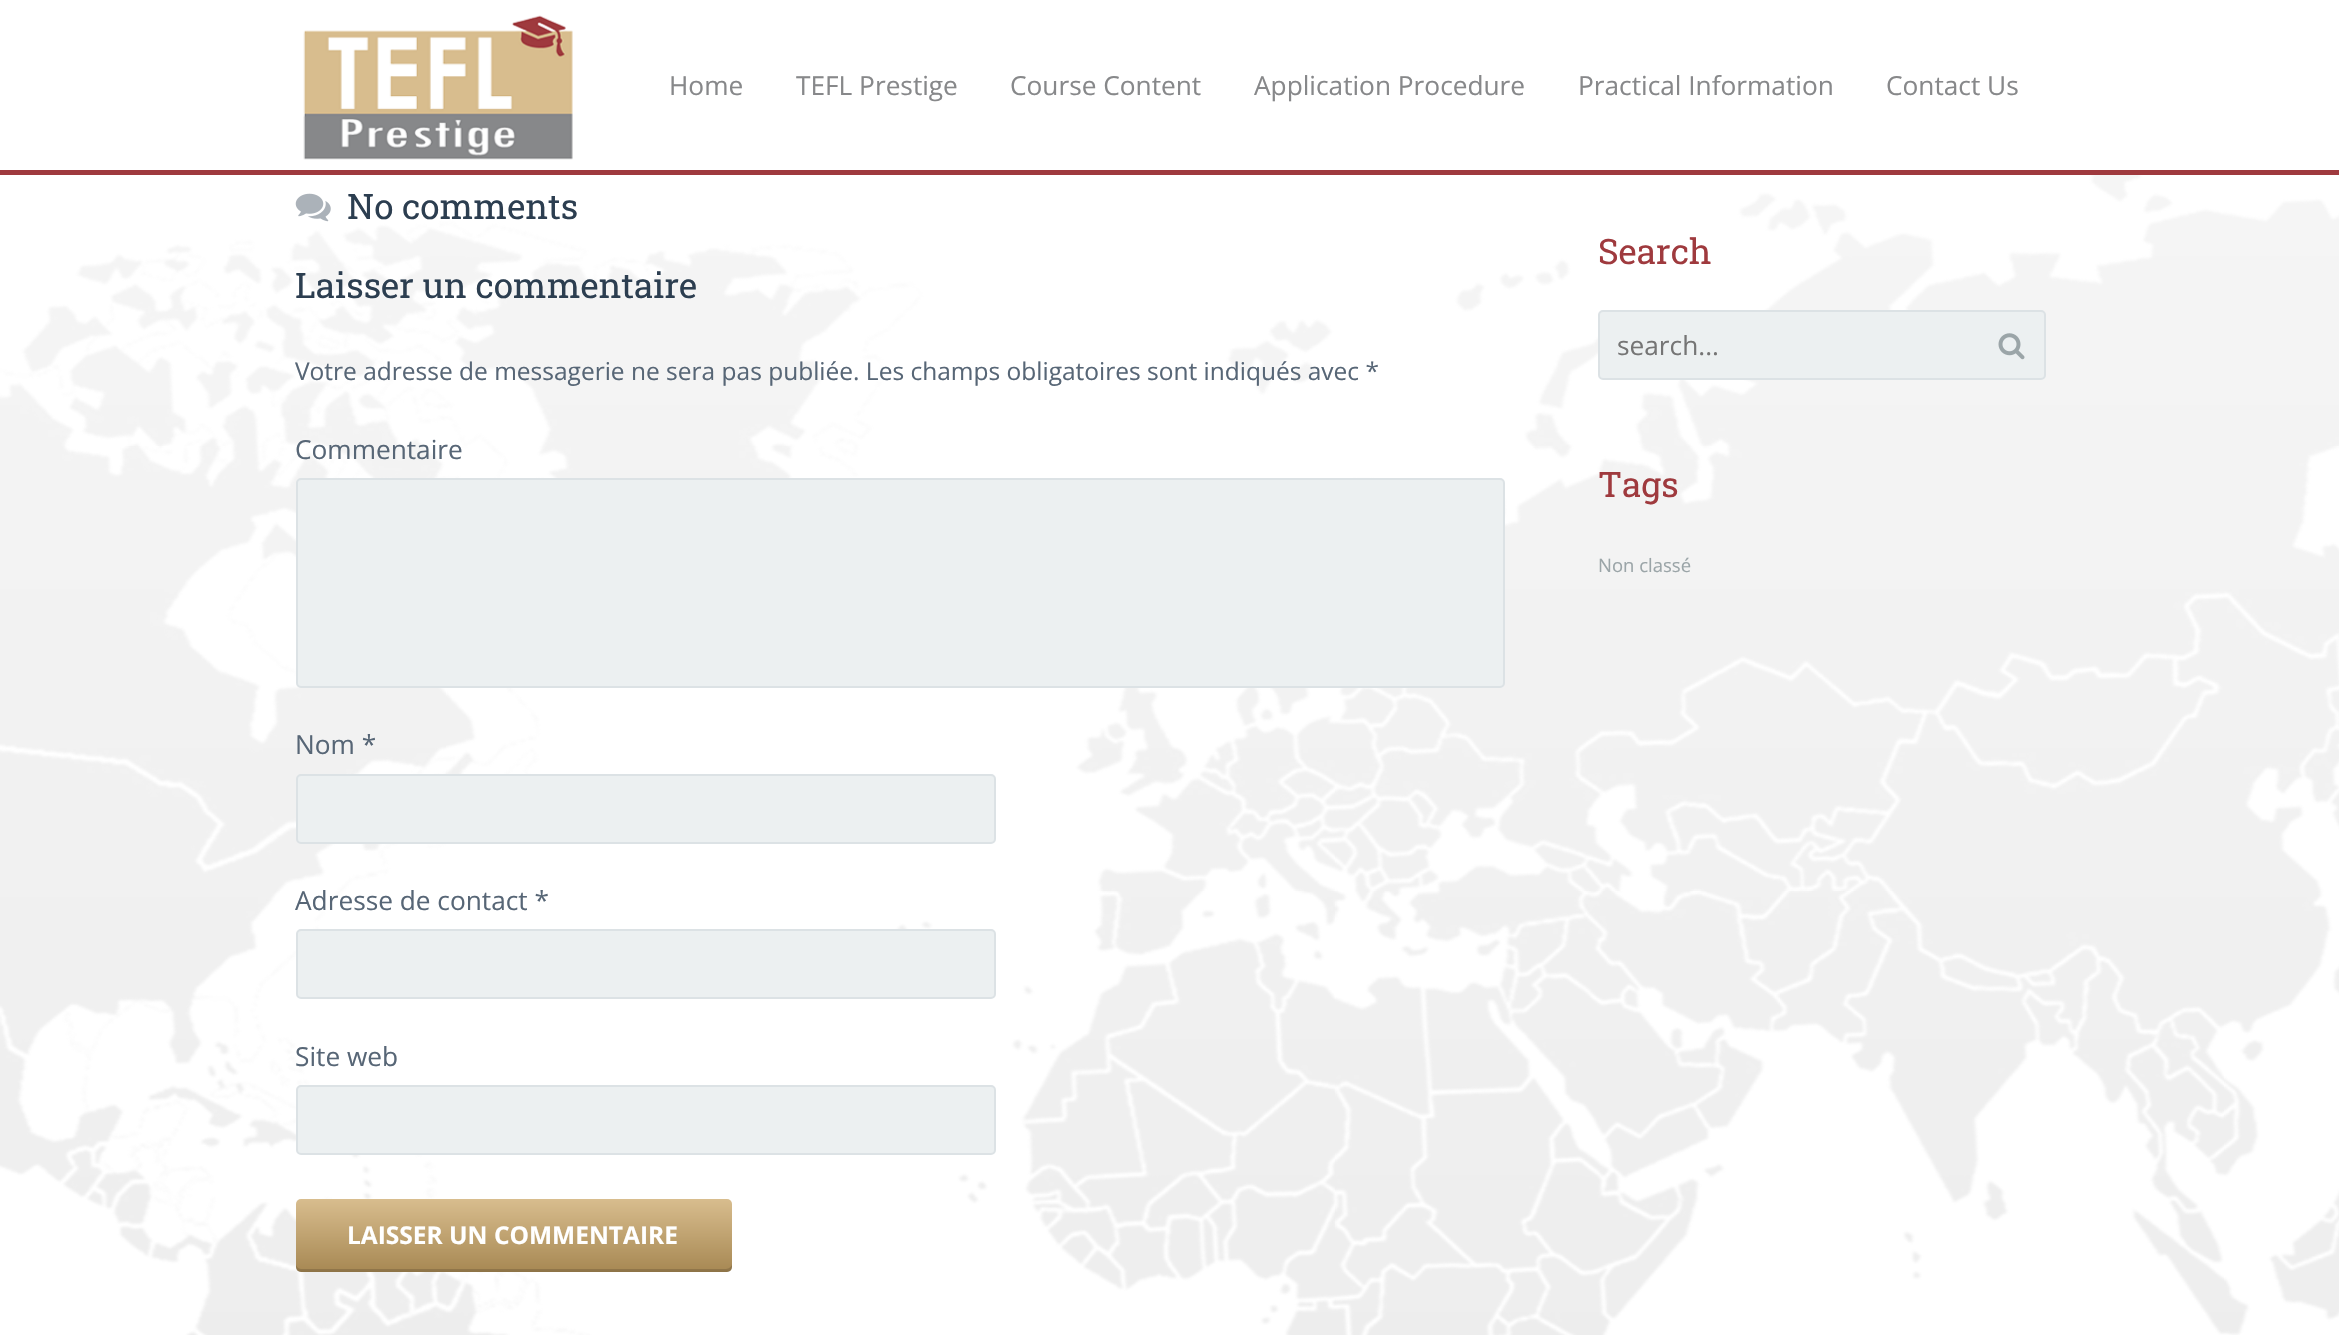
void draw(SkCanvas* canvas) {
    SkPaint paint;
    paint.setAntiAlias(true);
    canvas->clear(0xFFFFFFFF);
    paint.setColor(0xFF9F3A3E);
    canvas->drawRect(SkRect::MakeXYWH(0, 170, 2339, 5), paint);
    canvas->drawImageRect(SkImages::DeferredFromEncodedData(SkData::MakeFromFileName("img1.png")), SkRect::MakeXYWH(303, 15, 270, 145), SkSamplingOptions());
    SkFont font1(fontMgr->matchFamilyStyle("Open Sans", SkFontStyle::Normal()), 26.25f);
    font1.setSubpixel(true);
    paint.setColor(0xFF87888A);
    canvas->drawString("Home", 669, 95, font1, paint);
    canvas->drawString("TEFL Prestige", 796, 95, font1, paint);
    canvas->drawString("Course Content", 1010, 95, font1, paint);
    canvas->drawString("Application Procedure", 1254, 95, font1, paint);
    canvas->drawString("Practical Information", 1578, 95, font1, paint);
    canvas->drawString("Contact Us", 1886, 95, font1, paint);
    canvas->drawImageRect(SkImages::DeferredFromEncodedData(SkData::MakeFromFileName("img2.png")), SkRect::MakeXYWH(0, 175, 2339, 1160), SkSamplingOptions());
    canvas->drawImageRect(SkImages::DeferredFromEncodedData(SkData::MakeFromFileName("img3.png")), SkRect::MakeXYWH(295, 193, 36, 29), SkSamplingOptions());
    SkFont font2(fontMgr->matchFamilyStyle("Roboto Slab", SkFontStyle::Normal()), 35);
    font2.setSubpixel(true);
    paint.setColor(0xFF2C3E50);
    canvas->drawString("No comments", 347, 219, font2, paint);
    canvas->drawString("Laisser un commentaire", 295, 298, font2, paint);
    SkFont font3(fontMgr->matchFamilyStyle("Open Sans", SkFontStyle::Normal()), 24.5f);
    font3.setSubpixel(true);
    paint.setColor(0xFF576676);
    canvas->drawString("Votre adresse de messagerie ne sera pas publiée. Les champs obligatoires sont indiqués avec *", 295, 380, font3, paint);
    canvas->drawString("Commentaire", 295, 459, font1, paint);
    paint.setColor(0xFFECF0F1);
    canvas->drawRoundRect(SkRect::MakeXYWH(297, 479, 1207, 208), 4, 4, paint);
    paint.setStyle(SkPaint::kStroke_Style);
    paint.setStrokeWidth(2);
    paint.setColor(0xFFDCE2E5);
    canvas->drawRoundRect(SkRect::MakeXYWH(297, 479, 1207, 208), 4, 4, paint);
    paint.setStyle(SkPaint::kFill_Style);
    paint.setColor(0xFF576676);
    canvas->drawString("Nom *", 295, 754, font1, paint);
    paint.setColor(0xFFECF0F1);
    canvas->drawRoundRect(SkRect::MakeXYWH(297, 775, 698, 68), 4, 4, paint);
    paint.setStyle(SkPaint::kStroke_Style);
    paint.setColor(0xFFDCE2E5);
    canvas->drawRoundRect(SkRect::MakeXYWH(297, 775, 698, 68), 4, 4, paint);
    paint.setStyle(SkPaint::kFill_Style);
    paint.setColor(0xFF576676);
    canvas->drawString("Adresse de contact *", 295, 910, font1, paint);
    paint.setColor(0xFFECF0F1);
    canvas->drawRoundRect(SkRect::MakeXYWH(297, 930, 698, 68), 4, 4, paint);
    paint.setStyle(SkPaint::kStroke_Style);
    paint.setColor(0xFFDCE2E5);
    canvas->drawRoundRect(SkRect::MakeXYWH(297, 930, 698, 68), 4, 4, paint);
    paint.setStyle(SkPaint::kFill_Style);
    paint.setColor(0xFF576676);
    canvas->drawString("Site web", 295, 1066, font1, paint);
    paint.setColor(0xFFECF0F1);
    canvas->drawRoundRect(SkRect::MakeXYWH(297, 1086, 698, 68), 4, 4, paint);
    paint.setStyle(SkPaint::kStroke_Style);
    paint.setColor(0xFFDCE2E5);
    canvas->drawRoundRect(SkRect::MakeXYWH(297, 1086, 698, 68), 4, 4, paint);
    paint.setStyle(SkPaint::kFill_Style);
    {
        const SkColor colors[] = {0xFFD8BD8E, 0xFFA78853};
        const float stops[] = {0, 1};
        const SkPoint ends[] = {{514, 1199}, {514, 1272}};
        paint.setShader(SkGradientShader::MakeLinear(ends, colors, stops, 2, SkTileMode::kClamp));
        paint.setAlpha(255);
    }
    canvas->drawRoundRect(SkRect::MakeXYWH(296, 1199, 436, 73), 5, 5, paint);
    paint.setShader(nullptr);
    paint.setColor(0x26000000);
    canvas->drawPath(SkPathBuilder().moveTo(296, 1264).lineTo(296, 1267).cubicTo(296, 1270, 298, 1272, 301, 1272).lineTo(727, 1272).cubicTo(730, 1272, 732, 1270, 732, 1267).lineTo(732, 1264).cubicTo(732, 1266, 729, 1269, 726, 1269).lineTo(301, 1269).cubicTo(298, 1269, 296, 1266, 296, 1264).close().detach(), paint);
    SkFont font4(fontMgr->matchFamilyStyle("Open Sans", SkFontStyle::Bold()), 24.5f);
    font4.setSubpixel(true);
    paint.setColor(0xFFFFFFFF);
    canvas->drawString("LAISSER UN COMMENTAIRE", 347, 1244, font4, paint);
    paint.setColor(0xFF9F3A3E);
    canvas->drawString("Search", 1598, 264, font2, paint);
    paint.setColor(0xFFECF0F1);
    canvas->drawRoundRect(SkRect::MakeXYWH(1599, 311, 446, 68), 4, 4, paint);
    paint.setStyle(SkPaint::kStroke_Style);
    paint.setColor(0xFFDCE2E5);
    canvas->drawRoundRect(SkRect::MakeXYWH(1599, 311, 446, 68), 4, 4, paint);
    paint.setStyle(SkPaint::kFill_Style);
    paint.setColor(0xFF757575);
    canvas->drawString("search...", 1617, 355, font1, paint);
    canvas->drawImageRect(SkImages::DeferredFromEncodedData(SkData::MakeFromFileName("img4.png")), SkRect::MakeXYWH(1998, 333, 27, 27), SkSamplingOptions());
    paint.setColor(0xFF9F3A3E);
    canvas->drawString("Tags", 1598, 497, font2, paint);
    SkFont font5(fontMgr->matchFamilyStyle("Open Sans", SkFontStyle::Normal()), 18.5f);
    font5.setSubpixel(true);
    paint.setColor(0xFF9BA5A8);
    canvas->drawString("Non classé", 1598, 572, font5, paint);
}
